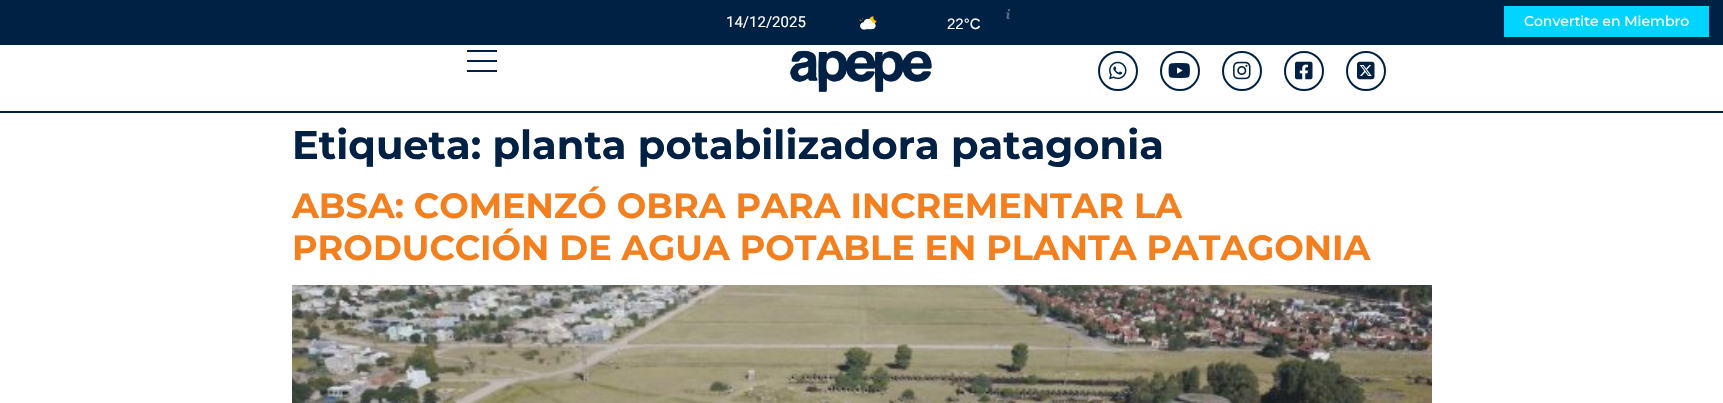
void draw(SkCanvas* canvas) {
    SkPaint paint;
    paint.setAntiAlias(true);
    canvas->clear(0xFFFFFFFF);
    paint.setColor(0xFF002144);
    canvas->drawRect(SkRect::MakeXYWH(0, 111, 1723, 2), paint);
    canvas->drawRect(SkRect::MakeXYWH(0, 0, 1723, 45), paint);
    SkFont font1(fontMgr->matchFamilyStyle("Roboto", SkFontStyle::Normal()), 15);
    font1.setSubpixel(true);
    paint.setColor(0xFFFFFFFF);
    canvas->drawString("14/12/2025", 726, 27, font1, paint);
    canvas->drawImageRect(SkImages::DeferredFromEncodedData(SkData::MakeFromFileName("img1.png")), SkRect::MakeXYWH(1005, 9, 6, 10), SkSamplingOptions());
    canvas->drawImageRect(SkImages::DeferredFromEncodedData(SkData::MakeFromFileName("img2.png")), SkRect::MakeXYWH(859, 16, 18, 14), SkSamplingOptions());
    SkFont font2(fontMgr->matchFamilyStyle("Liberation Sans", SkFontStyle::Normal()), 15);
    font2.setSubpixel(true);
    canvas->drawString("22°C", 947, 29, font2, paint);
    paint.setColor(0xFF00D4FF);
    canvas->drawRect(SkRect::MakeXYWH(1504, 6, 205, 31), paint);
    SkFont font3(fontMgr->matchFamilyStyle("Montserrat", SkFontStyle(500, SkFontStyle::kNormal_Width, SkFontStyle::kUpright_Slant)), 14);
    font3.setSubpixel(true);
    paint.setColor(0xFFFFFFFF);
    canvas->drawString("Convertite en Miembro", 1524, 26, font3, paint);
    paint.setColor(0xFF002144);
    canvas->drawRect(SkRect::MakeXYWH(467, 60, 30, 2), paint);
    canvas->drawRect(SkRect::MakeXYWH(467, 50, 30, 2), paint);
    canvas->drawRect(SkRect::MakeXYWH(467, 70, 30, 2), paint);
    canvas->drawImageRect(SkImages::DeferredFromEncodedData(SkData::MakeFromFileName("img3.png")), SkRect::MakeXYWH(790, 50, 142, 42), SkSamplingOptions());
    paint.setStyle(SkPaint::kStroke_Style);
    paint.setStrokeWidth(2);
    canvas->drawCircle(1118, 71, 19, paint);
    canvas->drawImageRect(SkImages::DeferredFromEncodedData(SkData::MakeFromFileName("img4.png")), SkRect::MakeXYWH(1109, 61, 18, 19), SkSamplingOptions());
    canvas->drawCircle(1180, 71, 19, paint);
    canvas->drawImageRect(SkImages::DeferredFromEncodedData(SkData::MakeFromFileName("img5.png")), SkRect::MakeXYWH(1168, 63, 22, 15), SkSamplingOptions());
    canvas->drawCircle(1242, 71, 19, paint);
    canvas->drawImageRect(SkImages::DeferredFromEncodedData(SkData::MakeFromFileName("img6.png")), SkRect::MakeXYWH(1233, 61, 18, 19), SkSamplingOptions());
    canvas->drawCircle(1304, 71, 19, paint);
    canvas->drawImageRect(SkImages::DeferredFromEncodedData(SkData::MakeFromFileName("img7.png")), SkRect::MakeXYWH(1295, 61, 18, 19), SkSamplingOptions());
    canvas->drawCircle(1366, 71, 19, paint);
    canvas->drawImageRect(SkImages::DeferredFromEncodedData(SkData::MakeFromFileName("img8.png")), SkRect::MakeXYWH(1357, 61, 18, 19), SkSamplingOptions());
    SkFont font4(fontMgr->matchFamilyStyle("Montserrat", SkFontStyle::Bold()), 40);
    font4.setSubpixel(true);
    paint.setStyle(SkPaint::kFill_Style);
    canvas->drawString("Etiqueta: planta potabilizadora patagonia", 292, 159, font4, paint);
    SkFont font5(fontMgr->matchFamilyStyle("Montserrat", SkFontStyle::Bold()), 35);
    font5.setSubpixel(true);
    paint.setColor(0xFFF37F1E);
    canvas->drawString("ABSA: COMENZÓ OBRA PARA INCREMENTAR LA", 292, 218, font5, paint);
    canvas->drawString("PRODUCCIÓN DE AGUA POTABLE EN PLANTA PATAGONIA", 292, 260, font5, paint);
    canvas->drawImageRect(SkImages::DeferredFromEncodedData(SkData::MakeFromFileName("img9.png")), SkRect::MakeXYWH(292, 285, 1140, 118), SkSamplingOptions());
}
